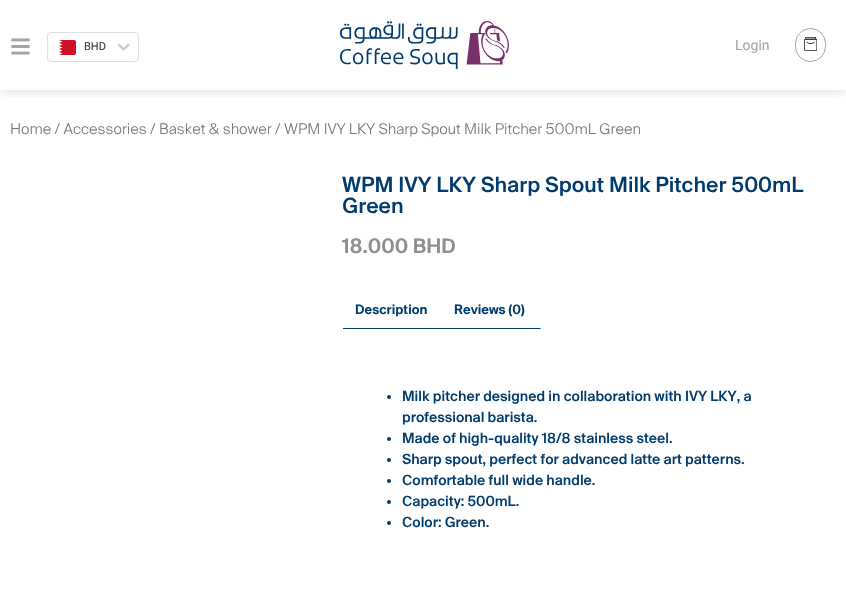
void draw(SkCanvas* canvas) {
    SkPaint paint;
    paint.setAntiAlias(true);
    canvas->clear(0xFFFFFFFF);
    canvas->save();
    canvas->clipRect(SkRect::MakeXYWH(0, 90, 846, 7));
    paint.setColor(0x2B000000);
    paint.setMaskFilter(SkMaskFilter::MakeBlur(kNormal_SkBlurStyle, 5.5f));
    canvas->drawRect(SkRect::MakeXYWH(0, 0, 846, 90), paint);
    paint.setMaskFilter(nullptr);
    canvas->restore();
    canvas->drawImageRect(SkImages::DeferredFromEncodedData(SkData::MakeFromFileName("img1.png")), SkRect::MakeXYWH(11, 38, 19, 17), SkSamplingOptions());
    paint.setStyle(SkPaint::kStroke_Style);
    paint.setStrokeWidth(1);
    paint.setColor(0xFFDCDFE6);
    canvas->drawRoundRect(SkRect::MakeXYWH(47.5f, 32.5f, 91, 29), 3.5f, 3.5f, paint);
    canvas->drawImageRect(SkImages::DeferredFromEncodedData(SkData::MakeFromFileName("img2.png")), SkRect::MakeXYWH(59, 40, 17, 15), SkSamplingOptions());
    SkFont font1(fontMgr->matchFamilyStyle("Roboto", SkFontStyle::Normal()), 11);
    font1.setSubpixel(true);
    paint.setStyle(SkPaint::kFill_Style);
    paint.setColor(0xFF3B3B3B);
    canvas->drawString("BHD", 84, 50, font1, paint);
    paint.setColor(0xFFCCCCCC);
    canvas->drawPath(SkPathBuilder().moveTo(117.5f, 45).lineTo(119, 43.5f).lineTo(125, 49).lineTo(123, 50.5f).close().detach(), paint);
    canvas->drawPath(SkPathBuilder().moveTo(128, 43.5f).lineTo(130, 45).lineTo(124, 50.5f).lineTo(122.5f, 49).close().detach(), paint);
    canvas->drawImageRect(SkImages::DeferredFromEncodedData(SkData::MakeFromFileName("img3.png")), SkRect::MakeXYWH(340, 21, 169, 48), SkSamplingOptions());
    SkFont font2(fontMgr->matchFamilyStyle("Roboto", SkFontStyle::Normal()), 14);
    font2.setSubpixel(true);
    paint.setColor(0xFFA5A5A5);
    canvas->drawString("Login", 735, 50, font2, paint);
    paint.setStyle(SkPaint::kStroke_Style);
    canvas->drawRoundRect(SkRect::MakeXYWH(795.5f, 28.5f, 30, 33), 15, 15, paint);
    canvas->drawImageRect(SkImages::DeferredFromEncodedData(SkData::MakeFromFileName("img4.png")), SkRect::MakeXYWH(804, 37, 13, 14), SkSamplingOptions());
    SkFont font3(fontMgr->matchFamilyStyle("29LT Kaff", SkFontStyle(300, SkFontStyle::kNormal_Width, SkFontStyle::kUpright_Slant)), 14.7f);
    font3.setSubpixel(true);
    paint.setStyle(SkPaint::kFill_Style);
    paint.setColor(0xFF767676);
    canvas->drawString("Home / Accessories / Basket & shower / WPM IVY LKY Sharp Spout Milk Pitcher 500mL Green", 10, 134, font3, paint);
    SkFont font4(fontMgr->matchFamilyStyle("29LT Kaff", SkFontStyle(500, SkFontStyle::kNormal_Width, SkFontStyle::kUpright_Slant)), 21);
    font4.setSubpixel(true);
    paint.setColor(0xFF003B6D);
    canvas->drawString("WPM IVY LKY Sharp Spout Milk Pitcher 500mL", 342, 192, font4, paint);
    canvas->drawString("Green", 342, 213, font4, paint);
    SkFont font5(fontMgr->matchFamilyStyle("29LT Kaff", SkFontStyle(600, SkFontStyle::kNormal_Width, SkFontStyle::kUpright_Slant)), 20);
    font5.setSubpixel(true);
    paint.setColor(0xFF8F8F8F);
    canvas->drawString("18.000 BHD", 342, 253, font5, paint);
    canvas->save();
    canvas->clipRect(SkRect::MakeXYWH(343, 293, 483, 36));
    paint.setColor(0xFF003B6D);
    canvas->drawPath(SkPathBuilder().moveTo(444, 329).lineTo(338, 329).lineTo(339, 328).lineTo(443, 328).close().detach(), paint);
    canvas->restore();
    SkFont font6(fontMgr->matchFamilyStyle("29LT Kaff", SkFontStyle(600, SkFontStyle::kNormal_Width, SkFontStyle::kUpright_Slant)), 13);
    font6.setSubpixel(true);
    canvas->drawString("Description", 355, 314, font6, paint);
    canvas->drawPath(SkPathBuilder().moveTo(541, 329).lineTo(438, 329).lineTo(439, 328).lineTo(540, 328).close().detach(), paint);
    canvas->drawString("Reviews (0)", 454, 314, font6, paint);
    canvas->drawCircle(389, 397, 2, paint);
    SkFont font7(fontMgr->matchFamilyStyle("29LT Kaff", SkFontStyle(500, SkFontStyle::kNormal_Width, SkFontStyle::kUpright_Slant)), 14);
    font7.setSubpixel(true);
    canvas->drawString("Milk pitcher designed in collaboration with IVY LKY, a", 402, 401, font7, paint);
    canvas->drawString("professional barista.", 402, 422, font7, paint);
    canvas->drawCircle(389, 439, 2, paint);
    canvas->drawString("Made of high-quality 18/8 stainless steel.", 402, 443, font7, paint);
    canvas->drawCircle(389, 460, 2, paint);
    canvas->drawString("Sharp spout, perfect for advanced latte art patterns.", 402, 464, font7, paint);
    canvas->drawCircle(389, 481, 2, paint);
    canvas->drawString("Comfortable full wide handle.", 402, 485, font7, paint);
    canvas->drawCircle(389, 502, 2, paint);
    canvas->drawString("Capacity: 500mL.", 402, 506, font7, paint);
    canvas->drawCircle(389, 523, 2, paint);
    canvas->drawString("Color: Green.", 402, 527, font7, paint);
}
